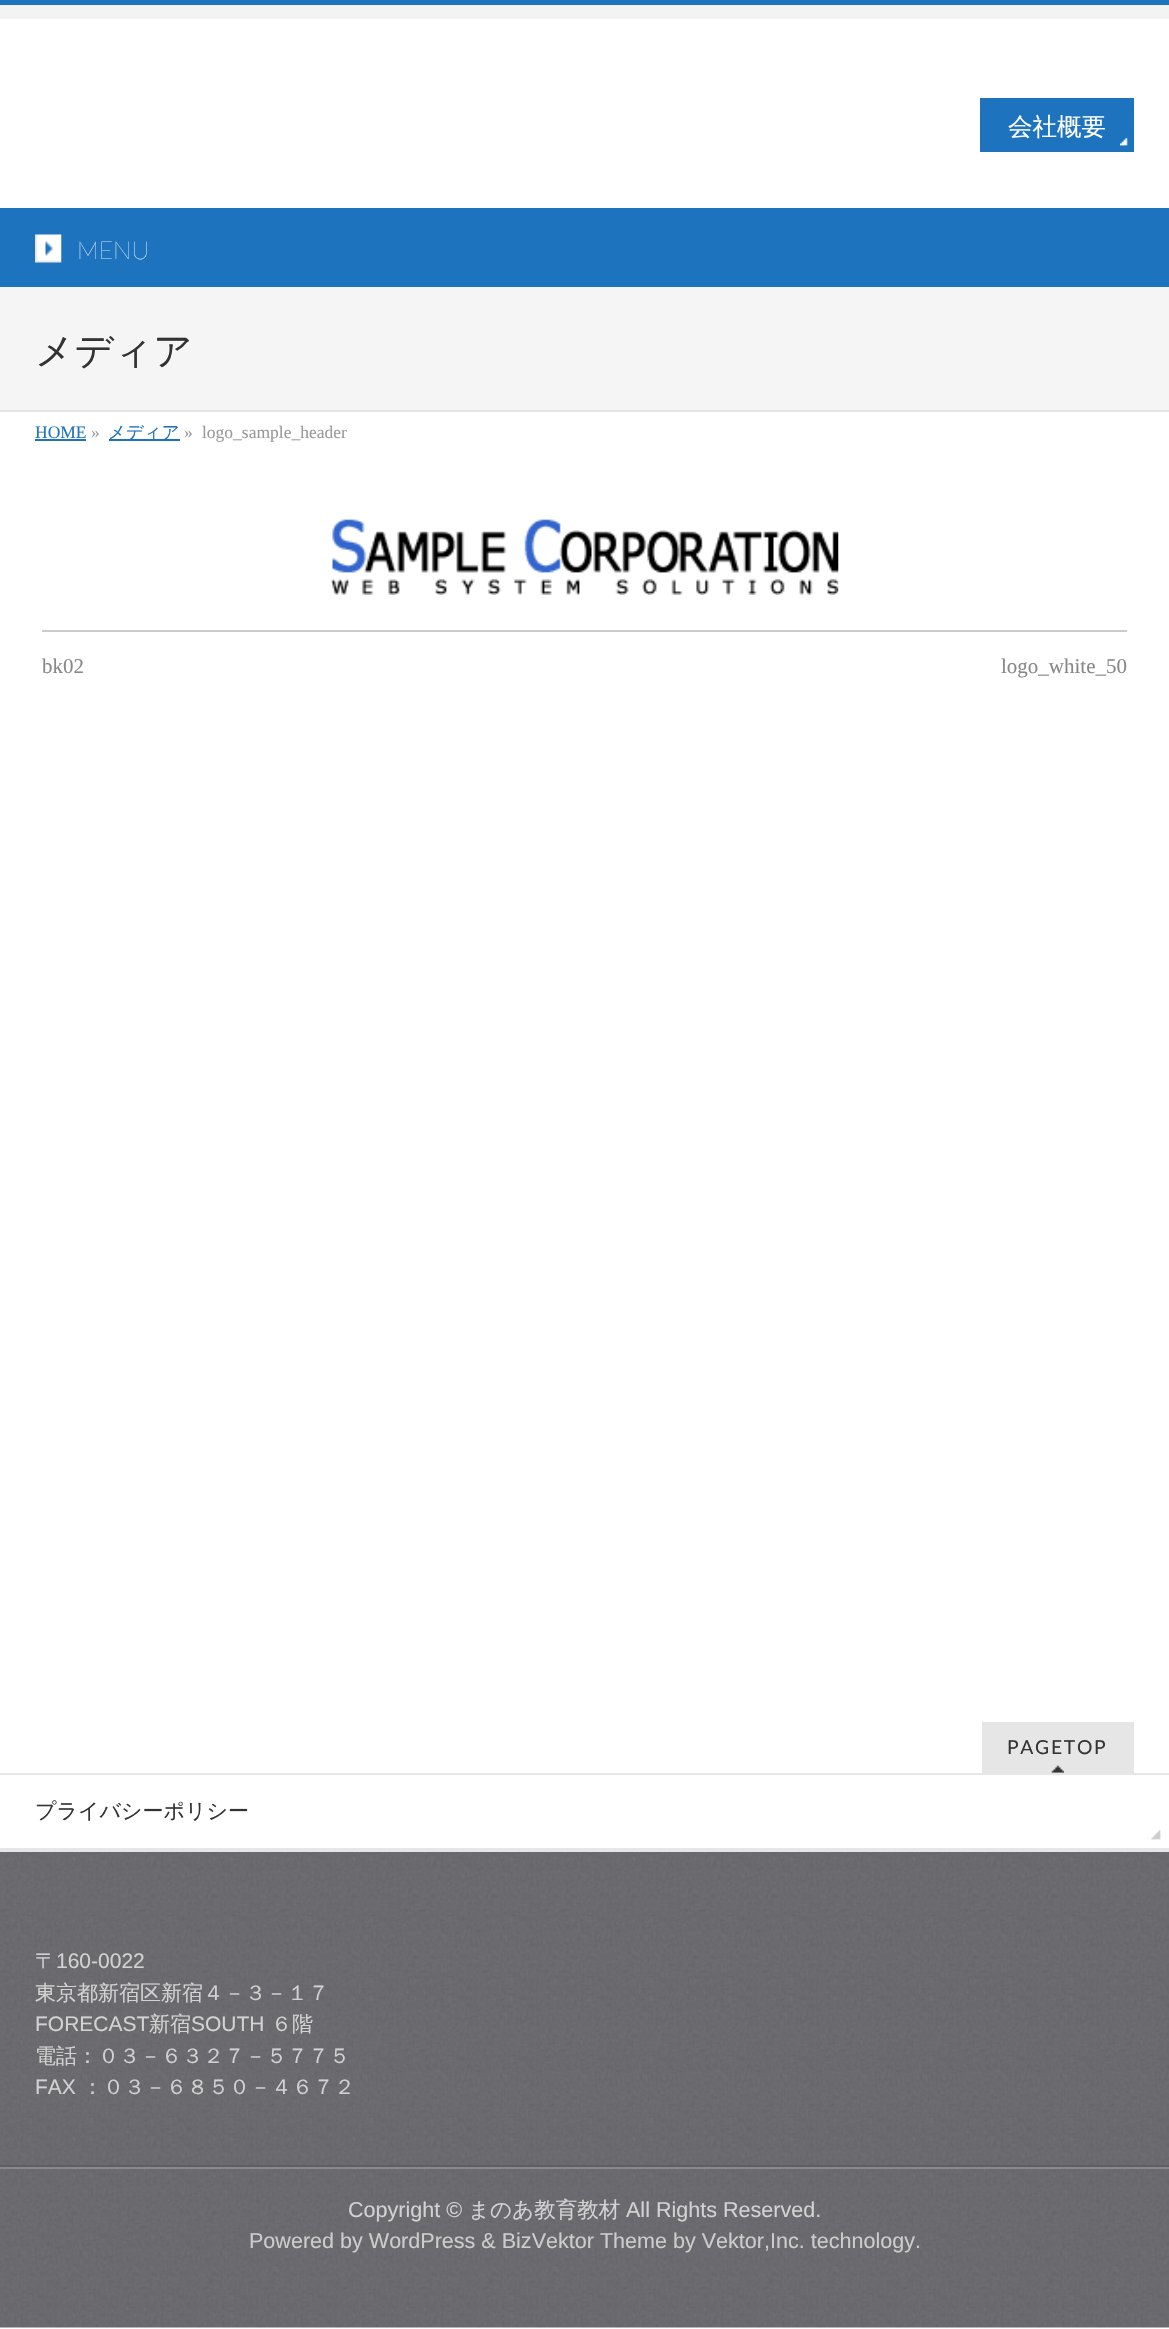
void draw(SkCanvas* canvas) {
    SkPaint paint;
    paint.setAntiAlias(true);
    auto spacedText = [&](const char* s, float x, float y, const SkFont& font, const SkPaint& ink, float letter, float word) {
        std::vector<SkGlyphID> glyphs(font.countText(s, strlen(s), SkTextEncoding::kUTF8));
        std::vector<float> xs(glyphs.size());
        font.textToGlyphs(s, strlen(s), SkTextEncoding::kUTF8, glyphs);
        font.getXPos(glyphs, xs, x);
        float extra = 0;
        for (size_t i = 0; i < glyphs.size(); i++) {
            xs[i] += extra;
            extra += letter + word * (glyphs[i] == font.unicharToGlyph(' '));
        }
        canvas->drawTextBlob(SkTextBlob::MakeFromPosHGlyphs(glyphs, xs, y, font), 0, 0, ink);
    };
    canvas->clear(0xFFFFFFFF);
    paint.setColor(0xFFF3F3F3);
    canvas->drawRect(SkRect::MakeXYWH(0, 5, 1169, 14), paint);
    paint.setColor(0xFF1E73BE);
    canvas->drawRect(SkRect::MakeXYWH(0, 0, 1169, 5), paint);
    canvas->drawRect(SkRect::MakeXYWH(980, 98, 154, 54), paint);
    canvas->drawImageRect(SkImages::DeferredFromEncodedData(SkData::MakeFromFileName("img1.png")), SkRect::MakeXYWH(1120, 138, 8, 8), SkSamplingOptions());
    SkFont font1(fontMgr->matchFamilyStyle("WenQuanYi Zen Hei", SkFontStyle(500, SkFontStyle::kNormal_Width, SkFontStyle::kUpright_Slant)), 24.5f);
    font1.setSubpixel(true);
    paint.setColor(0xFFFFFFFF);
    canvas->drawString("会社概要", 1008, 135, font1, paint);
    paint.setColor(0xFF1E73BE);
    canvas->drawRect(SkRect::MakeXYWH(0, 208, 1169, 79), paint);
    canvas->drawImageRect(SkImages::DeferredFromEncodedData(SkData::MakeFromFileName("img2.png")), SkRect::MakeXYWH(35, 234, 27, 29), SkSamplingOptions());
    SkFont font2(fontMgr->matchFamilyStyle("Lato", SkFontStyle(200, SkFontStyle::kNormal_Width, SkFontStyle::kUpright_Slant)), 24.5f);
    font2.setSubpixel(true);
    paint.setColor(0xFFFFFFFF);
    canvas->drawString("MENU", 77, 259, font2, paint);
    paint.setColor(0xFFF5F5F5);
    canvas->drawRect(SkRect::MakeXYWH(0, 287, 1169, 123), paint);
    paint.setColor(0xFFE5E5E5);
    canvas->drawRect(SkRect::MakeXYWH(0, 410, 1169, 2), paint);
    SkFont font3(fontMgr->matchFamilyStyle("WenQuanYi Zen Hei", SkFontStyle(500, SkFontStyle::kNormal_Width, SkFontStyle::kUpright_Slant)), 38.5f);
    font3.setSubpixel(true);
    paint.setColor(0xFF333333);
    canvas->drawString("メディア", 35, 364, font3, paint);
    SkFont font4(fontMgr->matchFamilyStyle("Liberation Serif", SkFontStyle::Normal()), 17.5f);
    font4.setSubpixel(true);
    paint.setColor(0xFF1E73BE);
    canvas->drawString("HOME", 35, 438, font4, paint);
    canvas->drawRect(SkRect::MakeXYWH(35, 439, 51, 2), paint);
    paint.setColor(0xFF999999);
    canvas->drawString("»", 91, 438, font4, paint);
    paint.setColor(0xFF1E73BE);
    canvas->drawRect(SkRect::MakeXYWH(109, 439, 71, 2), paint);
    SkFont font5(fontMgr->matchFamilyStyle("WenQuanYi Zen Hei", SkFontStyle(500, SkFontStyle::kNormal_Width, SkFontStyle::kUpright_Slant)), 17.5f);
    font5.setSubpixel(true);
    canvas->drawString("メディア", 108, 438, font5, paint);
    paint.setColor(0xFF999999);
    canvas->drawString("»", 184, 438, font4, paint);
    canvas->drawString("logo_sample_header", 202, 438, font4, paint);
    canvas->drawImageRect(SkImages::DeferredFromEncodedData(SkData::MakeFromFileName("img3.png")), SkRect::MakeXYWH(330, 519, 509, 76), SkSamplingOptions());
    paint.setColor(0xFFCCCCCC);
    canvas->drawRect(SkRect::MakeXYWH(42, 630, 1085, 2), paint);
    SkFont font6(fontMgr->matchFamilyStyle("Liberation Serif", SkFontStyle::Normal()), 21);
    font6.setSubpixel(true);
    paint.setColor(0xFF888888);
    canvas->drawString("bk02", 42, 673, font6, paint);
    canvas->drawString("logo_white_50", 1001, 673, font6, paint);
    paint.setColor(0xFFE6E6E6);
    canvas->drawRect(SkRect::MakeXYWH(982, 1722, 152, 51), paint);
    canvas->drawImageRect(SkImages::DeferredFromEncodedData(SkData::MakeFromFileName("img4.png")), SkRect::MakeXYWH(1051, 1765, 13, 8), SkSamplingOptions());
    SkFont font7(fontMgr->matchFamilyStyle("Lato", SkFontStyle::Normal()), 19.25f);
    font7.setSubpixel(true);
    paint.setColor(0xFF333333);
    spacedText("PAGETOP", 1007, 1754, font7, paint, 1.75f, 0);
    paint.setColor(0xFFE6E6E6);
    canvas->drawRect(SkRect::MakeXYWH(0, 1773, 1169, 2), paint);
    canvas->drawRect(SkRect::MakeXYWH(0, 1848, 1169, 4), paint);
    canvas->drawImageRect(SkImages::DeferredFromEncodedData(SkData::MakeFromFileName("img5.png")), SkRect::MakeXYWH(1151, 1830, 10, 10), SkSamplingOptions());
    SkFont font8(fontMgr->matchFamilyStyle("WenQuanYi Zen Hei", SkFontStyle(500, SkFontStyle::kNormal_Width, SkFontStyle::kUpright_Slant)), 21);
    font8.setSubpixel(true);
    paint.setColor(0xFF333333);
    canvas->drawString("プライバシーポリシー", 35, 1818, font8, paint);
    canvas->drawImageRect(SkImages::DeferredFromEncodedData(SkData::MakeFromFileName("img6.png")), SkRect::MakeXYWH(0, 1852, 1169, 313), SkSamplingOptions());
    paint.setColor(0xFF5F5E63);
    canvas->drawRect(SkRect::MakeXYWH(0, 2165, 1169, 2), paint);
    paint.setColor(0xFFD2D2D3);
    canvas->drawString("〒", 35, 1968, font8, paint);
    SkFont font9(fontMgr->matchFamilyStyle("Liberation Sans", SkFontStyle::Normal()), 21);
    font9.setSubpixel(true);
    canvas->drawString("160-0022", 56, 1968, font9, paint);
    canvas->drawString("東京都新宿区新宿４－３－１７", 35, 2000, font8, paint);
    canvas->drawString("FORECAST", 35, 2031, font9, paint);
    canvas->drawString("新宿", 149, 2031, font8, paint);
    canvas->drawString("SOUTH", 191, 2031, font9, paint);
    canvas->drawString("６階", 271, 2031, font8, paint);
    canvas->drawString("電話：０３－６３２７－５７７５", 35, 2063, font8, paint);
    canvas->drawString("FAX", 35, 2094, font9, paint);
    canvas->drawString("：０３－６８５０－４６７２", 82, 2094, font8, paint);
    canvas->drawImageRect(SkImages::DeferredFromEncodedData(SkData::MakeFromFileName("img7.png")), SkRect::MakeXYWH(0, 2169, 1169, 159), SkSamplingOptions());
    paint.setColor(0xFF8A898C);
    canvas->drawRect(SkRect::MakeXYWH(0, 2167, 1169, 2), paint);
    SkFont font10(fontMgr->matchFamilyStyle("Liberation Sans", SkFontStyle::Normal()), 21.55f);
    font10.setSubpixel(true);
    paint.setColor(0xFFD2D2D3);
    canvas->drawString("Copyright ©", 348, 2217, font10, paint);
    SkFont font11(fontMgr->matchFamilyStyle("WenQuanYi Zen Hei", SkFontStyle(500, SkFontStyle::kNormal_Width, SkFontStyle::kUpright_Slant)), 21.55f);
    font11.setSubpixel(true);
    canvas->drawString("まのあ教育教材", 468, 2217, font11, paint);
    canvas->drawString("All Rights Reserved.", 626, 2217, font10, paint);
    paint.setColor(0xFFCCCCCC);
    canvas->drawString("Powered by WordPress & BizVektor Theme by Vektor,Inc. technology.", 249, 2248, font10, paint);
}
